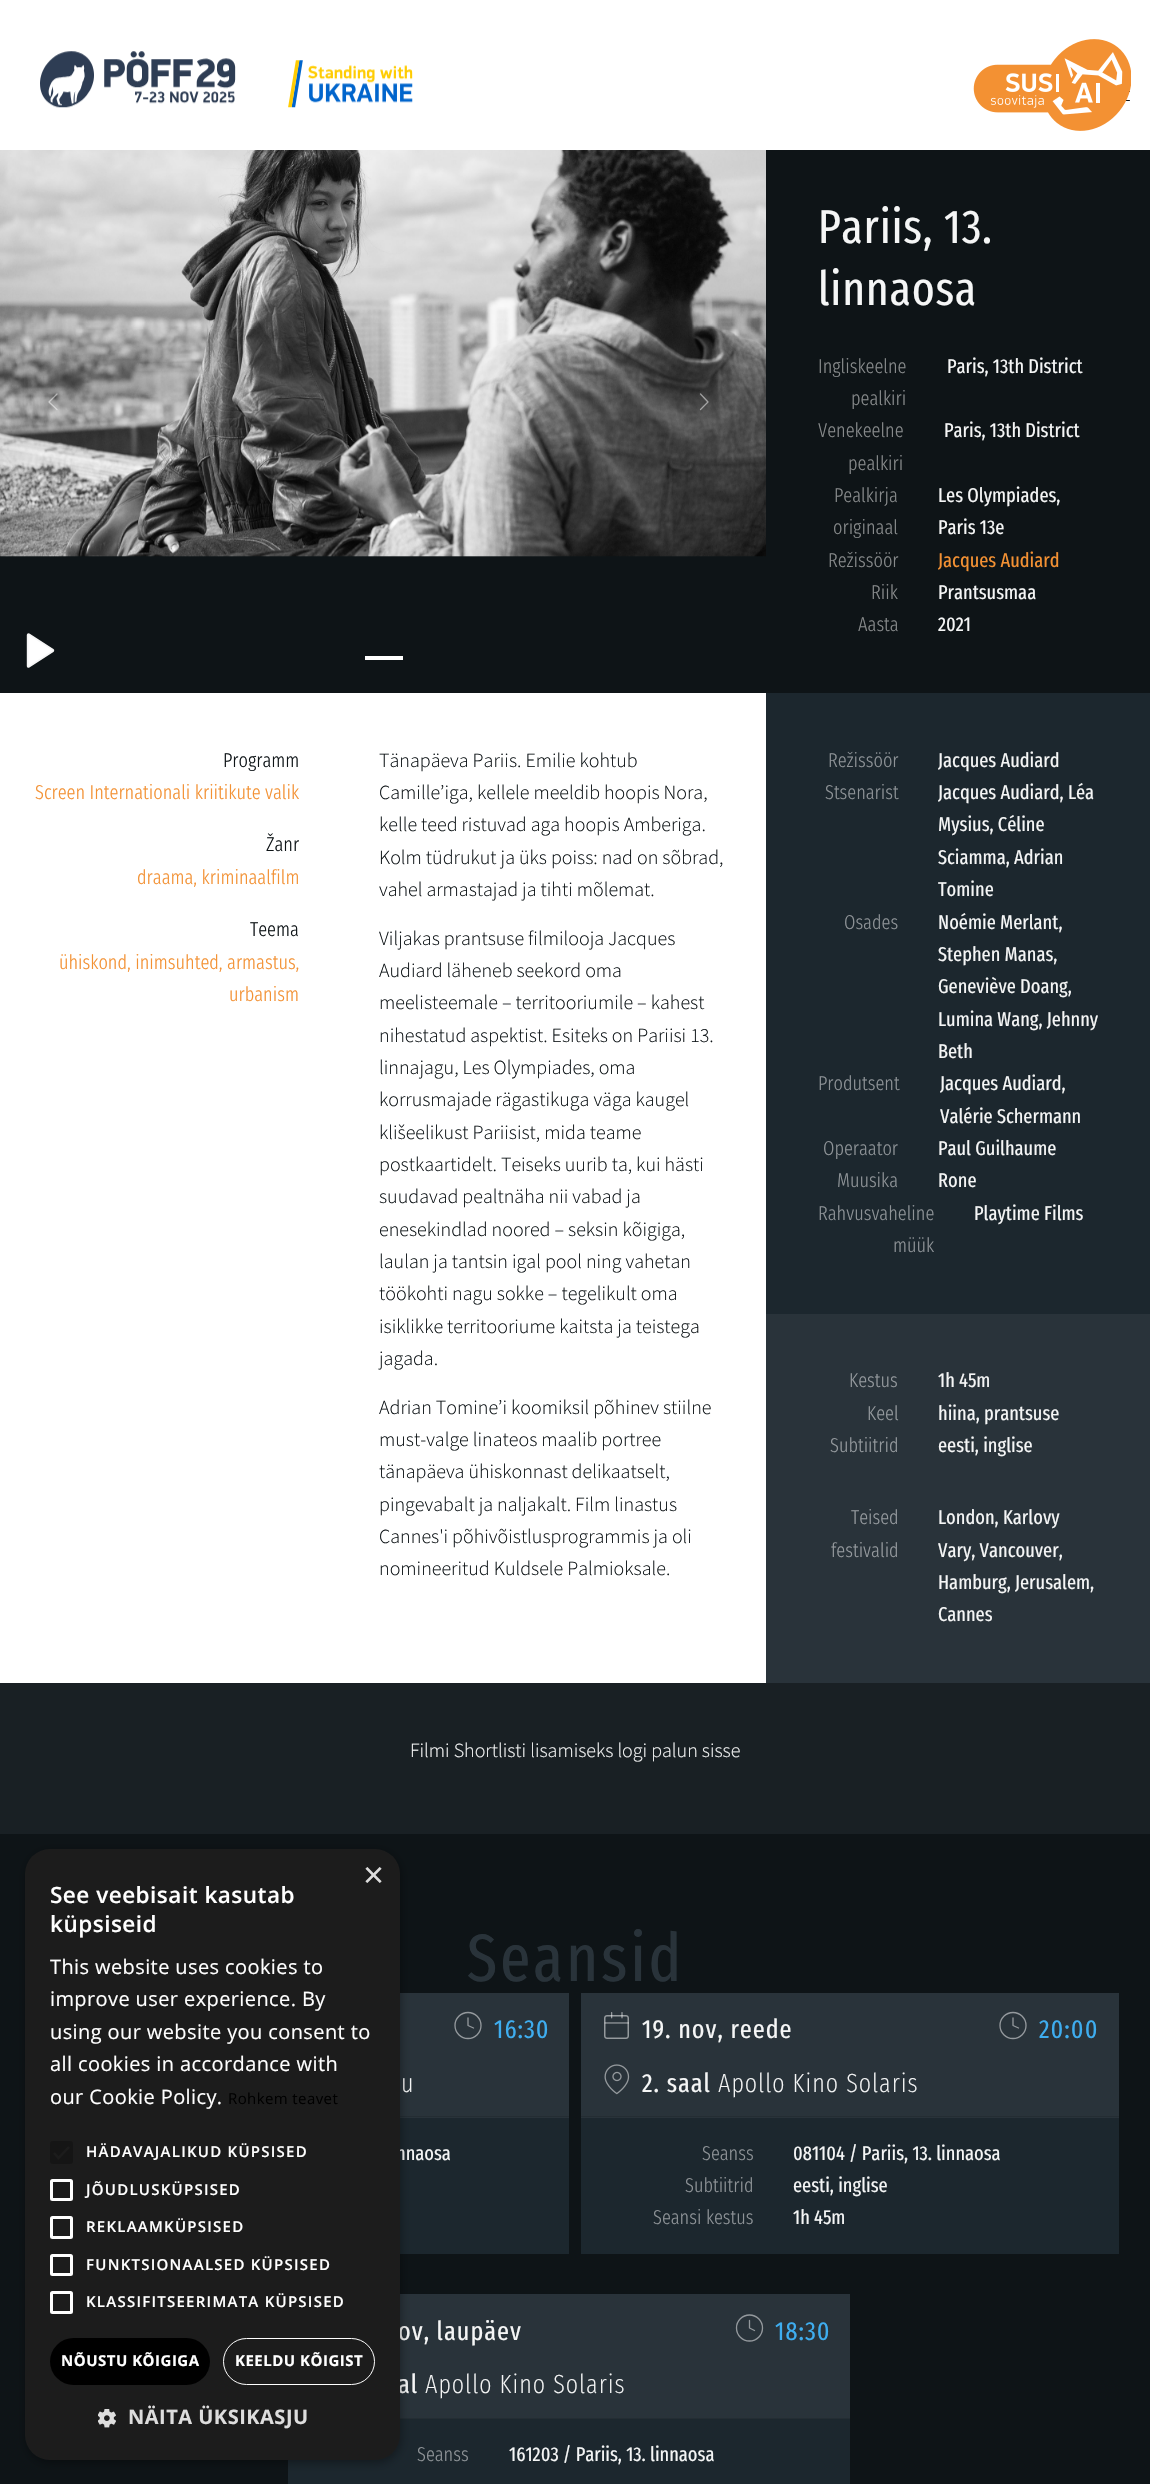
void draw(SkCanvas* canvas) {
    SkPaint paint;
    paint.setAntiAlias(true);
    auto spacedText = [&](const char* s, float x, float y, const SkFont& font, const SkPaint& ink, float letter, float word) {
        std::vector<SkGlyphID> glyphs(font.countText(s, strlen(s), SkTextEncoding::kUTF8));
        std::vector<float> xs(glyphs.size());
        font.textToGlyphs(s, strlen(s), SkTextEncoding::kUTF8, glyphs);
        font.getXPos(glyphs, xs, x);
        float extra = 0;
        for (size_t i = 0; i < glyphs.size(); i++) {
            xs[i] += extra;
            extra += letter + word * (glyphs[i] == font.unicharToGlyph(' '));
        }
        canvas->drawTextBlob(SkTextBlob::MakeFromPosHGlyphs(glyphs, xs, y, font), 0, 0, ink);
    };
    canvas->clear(0xFFFFFFFF);
    canvas->drawImageRect(SkImages::DeferredFromEncodedData(SkData::MakeFromFileName("img1.png")), SkRect::MakeXYWH(40, 51, 373, 57), SkSamplingOptions());
    paint.setColor(0xFF0E1417);
    canvas->drawRoundRect(SkRect::MakeXYWH(1098, 91, 32, 1), 0.5f, 0.5f, paint);
    canvas->drawRoundRect(SkRect::MakeXYWH(1098, 100, 32, 1), 0.5f, 0.5f, paint);
    canvas->drawImageRect(SkImages::DeferredFromEncodedData(SkData::MakeFromFileName("img2.png")), SkRect::MakeXYWH(973, 39, 158, 92), SkSamplingOptions());
    canvas->drawRect(SkRect::MakeXYWH(0, 556, 766, 137), paint);
    canvas->drawImageRect(SkImages::DeferredFromEncodedData(SkData::MakeFromFileName("img3.png")), SkRect::MakeXYWH(0, 150, 766, 407), SkSamplingOptions());
    paint.setStyle(SkPaint::kStroke_Style);
    paint.setStrokeWidth(1.3f);
    paint.setStrokeCap(SkPaint::kRound_Cap);
    paint.setStrokeJoin(SkPaint::kRound_Join);
    paint.setColor(0x80FFFFFF);
    canvas->drawPath(SkPathBuilder().moveTo(57, 409.5f).lineTo(49, 402).lineTo(57, 394).detach(), paint);
    canvas->drawPath(SkPathBuilder().moveTo(700.5f, 409.5f).lineTo(708, 402).lineTo(700.5f, 394).detach(), paint);
    paint.setStyle(SkPaint::kFill_Style);
    paint.setColor(0xFFFFFFFF);
    canvas->drawPath(SkPathBuilder().moveTo(28.5f, 635).lineTo(52.5f, 650.5f).lineTo(28.5f, 666).close().detach(), paint);
    paint.setStyle(SkPaint::kStroke_Style);
    paint.setStrokeWidth(3.4f);
    paint.setColor(0xF5FFFFFF);
    canvas->drawPath(SkPathBuilder().moveTo(28.5f, 635).lineTo(52.5f, 650.5f).lineTo(28.5f, 666).close().detach(), paint);
    paint.setStyle(SkPaint::kFill_Style);
    paint.setColor(0xFFFFFFFF);
    canvas->drawRect(SkRect::MakeXYWH(365, 656, 38, 4), paint);
    paint.setColor(0xFF0E1417);
    canvas->drawRect(SkRect::MakeXYWH(766, 150, 384, 543), paint);
    SkFont font1(fontMgr->matchFamilyStyle("Fira Sans Extra Condensed", SkFontStyle::Normal()), 47.5f);
    font1.setSubpixel(true);
    paint.setColor(0xFFF5F6F6);
    spacedText("Pariis, 13.", 818, 243, font1, paint, 0.75f, 0);
    spacedText("linnaosa", 818, 305, font1, paint, 0.75f, 0);
    SkFont font2(fontMgr->matchFamilyStyle("Fira Sans Extra Condensed", SkFontStyle(300, SkFontStyle::kNormal_Width, SkFontStyle::kUpright_Slant)), 20);
    font2.setSubpixel(true);
    paint.setColor(0xFF878A8B);
    canvas->drawString("Ingliskeelne", 818, 373, font2, paint);
    canvas->drawString("pealkiri", 851, 405, font2, paint);
    SkFont font3(fontMgr->matchFamilyStyle("Fira Sans Extra Condensed", SkFontStyle::Normal()), 20);
    font3.setSubpixel(true);
    paint.setColor(0xFFF5F6F6);
    canvas->drawString("Paris, 13th District", 947, 373, font3, paint);
    paint.setColor(0xFF878A8B);
    canvas->drawString("Venekeelne", 818, 437, font2, paint);
    canvas->drawString("pealkiri", 848, 470, font2, paint);
    paint.setColor(0xFFF5F6F6);
    canvas->drawString("Paris, 13th District", 944, 437, font3, paint);
    paint.setColor(0xFF878A8B);
    canvas->drawString("Pealkirja", 834, 502, font2, paint);
    canvas->drawString("originaal", 833, 534, font2, paint);
    paint.setColor(0xFFF5F6F6);
    canvas->drawString("Les Olympiades,", 938, 502, font3, paint);
    canvas->drawString("Paris 13e", 938, 534, font3, paint);
    paint.setColor(0xFF878A8B);
    canvas->drawString("Režissöör", 828, 567, font2, paint);
    paint.setColor(0xFFF39133);
    canvas->drawString("Jacques Audiard", 938, 567, font3, paint);
    paint.setColor(0xFF878A8B);
    canvas->drawString("Riik", 871, 599, font2, paint);
    paint.setColor(0xFFF5F6F6);
    canvas->drawString("Prantsusmaa", 938, 599, font3, paint);
    paint.setColor(0xFF878A8B);
    canvas->drawString("Aasta", 858, 631, font2, paint);
    paint.setColor(0xFFF5F6F6);
    canvas->drawString("2021", 938, 631, font3, paint);
    paint.setColor(0xFF0E1417);
    canvas->drawString("Programm", 223, 767, font2, paint);
    paint.setColor(0xFFF39133);
    canvas->drawString("Screen Internationali kriitikute valik", 35, 799, font2, paint);
    paint.setColor(0xFF0E1417);
    canvas->drawString("Žanr", 266, 851, font2, paint);
    paint.setColor(0xFFF39133);
    canvas->drawString("draama, kriminaalfilm", 137, 884, font2, paint);
    paint.setColor(0xFF0E1417);
    canvas->drawString("Teema", 250, 936, font2, paint);
    paint.setColor(0xFFF39133);
    canvas->drawString("ühiskond, inimsuhted, armastus,", 59, 969, font2, paint);
    canvas->drawString("urbanism", 229, 1001, font2, paint);
    SkFont font4(fontMgr->matchFamilyStyle("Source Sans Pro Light", SkFontStyle(300, SkFontStyle::kNormal_Width, SkFontStyle::kUpright_Slant)), 20);
    font4.setSubpixel(true);
    paint.setColor(0xFF0E1417);
    canvas->drawString("Tänapäeva Pariis. Emilie kohtub", 379, 767, font4, paint);
    canvas->drawString("Camille’iga, kellele meeldib hoopis Nora,", 379, 799, font4, paint);
    canvas->drawString("kelle teed ristuvad aga hoopis Amberiga.", 379, 831, font4, paint);
    canvas->drawString("Kolm tüdrukut ja üks poiss: nad on sõbrad,", 379, 864, font4, paint);
    canvas->drawString("vahel armastajad ja tihti mõlemat.", 379, 896, font4, paint);
    canvas->drawString("Viljakas prantsuse filmilooja Jacques", 379, 945, font4, paint);
    canvas->drawString("Audiard läheneb seekord oma", 379, 977, font4, paint);
    canvas->drawString("meelisteemale – territooriumile – kahest", 379, 1009, font4, paint);
    canvas->drawString("nihestatud aspektist. Esiteks on Pariisi 13.", 379, 1042, font4, paint);
    canvas->drawString("linnajagu, Les Olympiades, oma", 379, 1074, font4, paint);
    canvas->drawString("korrusmajade rägastikuga väga kaugel", 379, 1106, font4, paint);
    canvas->drawString("klišeelikust Pariisist, mida teame", 379, 1139, font4, paint);
    canvas->drawString("postkaartidelt. Teiseks uurib ta, kui hästi", 379, 1171, font4, paint);
    canvas->drawString("suudavad pealtnäha nii vabad ja", 379, 1203, font4, paint);
    canvas->drawString("enesekindlad noored – seksin kõigiga,", 379, 1236, font4, paint);
    canvas->drawString("laulan ja tantsin igal pool ning vahetan", 379, 1268, font4, paint);
    canvas->drawString("töökohti nagu sokke – tegelikult oma", 379, 1300, font4, paint);
    canvas->drawString("isiklikke territooriume kaitsta ja teistega", 379, 1333, font4, paint);
    canvas->drawString("jagada.", 379, 1365, font4, paint);
    canvas->drawString("Adrian Tomine’i koomiksil põhinev stiilne", 379, 1414, font4, paint);
    canvas->drawString("must-valge linateos maalib portree", 379, 1446, font4, paint);
    canvas->drawString("tänapäeva ühiskonnast delikaatselt,", 379, 1478, font4, paint);
    canvas->drawString("pingevabalt ja naljakalt. Film linastus", 379, 1511, font4, paint);
    canvas->drawString("Cannes'i põhivõistlusprogrammis ja oli", 379, 1543, font4, paint);
    canvas->drawString("nomineeritud Kuldsele Palmioksale.", 379, 1575, font4, paint);
    paint.setColor(0xFF1C272E);
    canvas->drawRect(SkRect::MakeXYWH(766, 693, 384, 621), paint);
    paint.setColor(0xFF8E9397);
    canvas->drawString("Režissöör", 828, 767, font2, paint);
    paint.setColor(0xFFF5F6F6);
    canvas->drawString("Jacques Audiard", 938, 767, font3, paint);
    paint.setColor(0xFF8E9397);
    canvas->drawString("Stsenarist", 825, 799, font2, paint);
    paint.setColor(0xFFF5F6F6);
    canvas->drawString("Jacques Audiard, Léa", 938, 799, font3, paint);
    canvas->drawString("Mysius, Céline", 938, 831, font3, paint);
    canvas->drawString("Sciamma, Adrian", 938, 864, font3, paint);
    canvas->drawString("Tomine", 938, 896, font3, paint);
    paint.setColor(0xFF8E9397);
    canvas->drawString("Osades", 844, 929, font2, paint);
    paint.setColor(0xFFF5F6F6);
    canvas->drawString("Noémie Merlant,", 938, 929, font3, paint);
    canvas->drawString("Stephen Manas,", 938, 961, font3, paint);
    canvas->drawString("Geneviève Doang,", 938, 993, font3, paint);
    canvas->drawString("Lumina Wang, Jehnny", 938, 1026, font3, paint);
    canvas->drawString("Beth", 938, 1058, font3, paint);
    paint.setColor(0xFF8E9397);
    canvas->drawString("Produtsent", 818, 1090, font2, paint);
    paint.setColor(0xFFF5F6F6);
    canvas->drawString("Jacques Audiard,", 940, 1090, font3, paint);
    canvas->drawString("Valérie Schermann", 940, 1123, font3, paint);
    paint.setColor(0xFF8E9397);
    canvas->drawString("Operaator", 823, 1155, font2, paint);
    paint.setColor(0xFFF5F6F6);
    canvas->drawString("Paul Guilhaume", 938, 1155, font3, paint);
    paint.setColor(0xFF8E9397);
    canvas->drawString("Muusika", 837, 1187, font2, paint);
    paint.setColor(0xFFF5F6F6);
    canvas->drawString("Rone", 938, 1187, font3, paint);
    paint.setColor(0xFF8E9397);
    canvas->drawString("Rahvusvaheline", 818, 1220, font2, paint);
    canvas->drawString("müük", 893, 1252, font2, paint);
    paint.setColor(0xFFF5F6F6);
    canvas->drawString("Playtime Films", 974, 1220, font3, paint);
    paint.setColor(0xFF29333A);
    canvas->drawRect(SkRect::MakeXYWH(766, 1314, 384, 369), paint);
    paint.setColor(0xFF94999D);
    canvas->drawString("Kestus", 849, 1387, font2, paint);
    paint.setColor(0xFFF5F6F6);
    canvas->drawString("1h 45m", 938, 1387, font3, paint);
    paint.setColor(0xFF94999D);
    canvas->drawString("Keel", 867, 1420, font2, paint);
    paint.setColor(0xFFF5F6F6);
    canvas->drawString("hiina, prantsuse", 938, 1420, font3, paint);
    paint.setColor(0xFF94999D);
    canvas->drawString("Subtiitrid", 830, 1452, font2, paint);
    paint.setColor(0xFFF5F6F6);
    canvas->drawString("eesti, inglise", 938, 1452, font3, paint);
    paint.setColor(0xFF94999D);
    canvas->drawString("Teised", 851, 1524, font2, paint);
    canvas->drawString("festivalid", 831, 1557, font2, paint);
    paint.setColor(0xFFF5F6F6);
    canvas->drawString("London, Karlovy", 938, 1524, font3, paint);
    canvas->drawString("Vary, Vancouver,", 938, 1557, font3, paint);
    canvas->drawString("Hamburg, Jerusalem,", 938, 1589, font3, paint);
    canvas->drawString("Cannes", 938, 1621, font3, paint);
    paint.setColor(0xFF192024);
    canvas->drawRect(SkRect::MakeXYWH(0, 1683, 1150, 151), paint);
    paint.setColor(0xFFF5F6F6);
    canvas->drawString("Filmi Shortlisti lisamiseks logi palun sisse", 410, 1757, font4, paint);
    paint.setColor(0xFF0E1417);
    canvas->drawRect(SkRect::MakeXYWH(0, 1834, 1150, 650), paint);
    SkFont font5(fontMgr->matchFamilyStyle("Fira Sans Extra Condensed", SkFontStyle::Normal()), 67);
    font5.setSubpixel(true);
    paint.setColor(0xFF29333A);
    spacedText("Seansid", 467, 1981, font5, paint, 2.75f, 0);
    canvas->drawRect(SkRect::MakeXYWH(400, 1993, 169, 125), paint);
    paint.setColor(0xFF242D33);
    canvas->drawRect(SkRect::MakeXYWH(400, 2116, 169, 1), paint);
    paint.setStyle(SkPaint::kStroke_Style);
    paint.setStrokeWidth(1.3f);
    paint.setStrokeCap(SkPaint::kButt_Cap);
    paint.setStrokeJoin(SkPaint::kMiter_Join);
    paint.setColor(0xFF94999D);
    canvas->drawCircle(468, 2025.5f, 13, paint);
    paint.setStrokeCap(SkPaint::kRound_Cap);
    paint.setStrokeJoin(SkPaint::kRound_Join);
    canvas->drawPath(SkPathBuilder().moveTo(468, 2018).lineTo(468, 2025.5f).lineTo(473.5f, 2028).detach(), paint);
    SkFont font6(fontMgr->matchFamilyStyle("Fira Sans Extra Condensed", SkFontStyle::Normal()), 26.25f);
    font6.setSubpixel(true);
    paint.setStyle(SkPaint::kFill_Style);
    paint.setColor(0xFF3EADEF);
    spacedText("16:30", 494, 2038, font6, paint, 1, 0);
    SkFont font7(fontMgr->matchFamilyStyle("Fira Sans Extra Condensed", SkFontStyle(200, SkFontStyle::kNormal_Width, SkFontStyle::kUpright_Slant)), 26.25f);
    font7.setSubpixel(true);
    paint.setColor(0xFFF5F6F6);
    spacedText("u", 401, 2092, font7, paint, 1, 0);
    paint.setColor(0xFF1C272E);
    canvas->drawRect(SkRect::MakeXYWH(400, 2118, 169, 136), paint);
    paint.setColor(0xFFF5F6F6);
    canvas->drawString("nnaosa", 396, 2160, font3, paint);
    paint.setColor(0xFF29333A);
    canvas->drawRect(SkRect::MakeXYWH(581, 1993, 538, 125), paint);
    paint.setColor(0xFF242D33);
    canvas->drawRect(SkRect::MakeXYWH(581, 2116, 538, 1), paint);
    canvas->drawImageRect(SkImages::DeferredFromEncodedData(SkData::MakeFromFileName("img4.png")), SkRect::MakeXYWH(604, 2012, 25, 27), SkSamplingOptions());
    paint.setColor(0xFFF5F6F6);
    spacedText("19. nov, reede", 642, 2038, font6, paint, 1, 0);
    paint.setStyle(SkPaint::kStroke_Style);
    paint.setStrokeCap(SkPaint::kButt_Cap);
    paint.setStrokeJoin(SkPaint::kMiter_Join);
    paint.setColor(0xFF94999D);
    canvas->drawCircle(1013, 2025.5f, 13, paint);
    paint.setStrokeCap(SkPaint::kRound_Cap);
    paint.setStrokeJoin(SkPaint::kRound_Join);
    canvas->drawPath(SkPathBuilder().moveTo(1013, 2018).lineTo(1013, 2025.5f).lineTo(1018.5f, 2028).detach(), paint);
    paint.setStyle(SkPaint::kFill_Style);
    paint.setColor(0xFF3EADEF);
    spacedText("20:00", 1039, 2038, font6, paint, 1, 0);
    canvas->drawImageRect(SkImages::DeferredFromEncodedData(SkData::MakeFromFileName("img5.png")), SkRect::MakeXYWH(604, 2064, 26, 31), SkSamplingOptions());
    paint.setColor(0xFFF5F6F6);
    spacedText("2. saal", 642, 2092, font6, paint, 1, 0);
    spacedText("Apollo Kino Solaris", 718, 2092, font7, paint, 1, 0);
    paint.setColor(0xFF1C272E);
    canvas->drawRect(SkRect::MakeXYWH(581, 2118, 538, 136), paint);
    paint.setColor(0xFF8E9397);
    canvas->drawString("Seanss", 702, 2160, font2, paint);
    paint.setColor(0xFFF5F6F6);
    canvas->drawString("081104 / Pariis, 13. linnaosa", 793, 2160, font3, paint);
    paint.setColor(0xFF8E9397);
    canvas->drawString("Subtiitrid", 685, 2192, font2, paint);
    paint.setColor(0xFFF5F6F6);
    canvas->drawString("eesti, inglise", 793, 2192, font3, paint);
    paint.setColor(0xFF8E9397);
    canvas->drawString("Seansi kestus", 653, 2224, font2, paint);
    paint.setColor(0xFFF5F6F6);
    canvas->drawString("1h 45m", 793, 2224, font3, paint);
    paint.setColor(0xFF29333A);
    canvas->drawRect(SkRect::MakeXYWH(400, 2294, 450, 124), paint);
    paint.setColor(0xFF242D33);
    canvas->drawRect(SkRect::MakeXYWH(400, 2418, 450, 1), paint);
    paint.setColor(0xFFF5F6F6);
    spacedText("ov, laupäev", 398, 2340, font6, paint, 1, 0);
    paint.setStyle(SkPaint::kStroke_Style);
    paint.setStrokeCap(SkPaint::kButt_Cap);
    paint.setStrokeJoin(SkPaint::kMiter_Join);
    paint.setColor(0xFF94999D);
    canvas->drawCircle(749.5f, 2328, 13, paint);
    paint.setStrokeCap(SkPaint::kRound_Cap);
    paint.setStrokeJoin(SkPaint::kRound_Join);
    canvas->drawPath(SkPathBuilder().moveTo(749.5f, 2320.5f).lineTo(749.5f, 2328).lineTo(754.5f, 2330.5f).detach(), paint);
    paint.setStyle(SkPaint::kFill_Style);
    paint.setColor(0xFF3EADEF);
    spacedText("18:30", 775, 2340, font6, paint, 1, 0);
    paint.setColor(0xFFF5F6F6);
    spacedText("al", 398, 2393, font6, paint, 1, 0);
    spacedText("Apollo Kino Solaris", 425, 2393, font7, paint, 1, 0);
    paint.setColor(0xFF1C272E);
    canvas->drawRect(SkRect::MakeXYWH(288, 2419, 562, 65), paint);
    paint.setColor(0xFF8E9397);
    canvas->drawString("Seanss", 417, 2461, font2, paint);
    paint.setColor(0xFFF5F6F6);
    canvas->drawString("161203 / Pariis, 13. linnaosa", 509, 2461, font3, paint);
    paint.setColor(0x59000000);
    paint.setMaskFilter(SkMaskFilter::MakeBlur(kNormal_SkBlurStyle, 5));
    canvas->drawRoundRect(SkRect::MakeXYWH(26, 1851, 375, 612), 25, 25, paint);
    paint.setMaskFilter(nullptr);
    paint.setColor(0xFF1C1C1C);
    canvas->drawRoundRect(SkRect::MakeXYWH(25, 1849, 375, 611), 25, 25, paint);
    SkFont font8(fontMgr->matchFamilyStyle("Liberation Sans", SkFontStyle::Normal()), 36);
    font8.setSubpixel(true);
    paint.setColor(0xFFDDDDDD);
    canvas->drawString("×", 363, 1887, font8, paint);
    SkFont font9(fontMgr->matchFamilyStyle("Open Sans", SkFontStyle(600, SkFontStyle::kNormal_Width, SkFontStyle::kUpright_Slant)), 22.5f);
    font9.setSubpixel(true);
    paint.setColor(0xFFFFFFFF);
    spacedText("See veebisait kasutab", 50, 1903, font9, paint, 0.5f, 0);
    spacedText("küpsiseid", 50, 1932, font9, paint, 0.5f, 0);
    SkFont font10(fontMgr->matchFamilyStyle("Open Sans", SkFontStyle::Normal()), 20);
    font10.setSubpixel(true);
    spacedText("This website uses cookies to", 50, 1974, font10, paint, 0.4f, 0);
    spacedText("improve user experience. By", 50, 2006, font10, paint, 0.4f, 0);
    spacedText("using our website you consent to", 50, 2039, font10, paint, 0.4f, 0);
    spacedText("all cookies in accordance with", 50, 2071, font10, paint, 0.4f, 0);
    spacedText("our Cookie Policy.", 50, 2104, font10, paint, 0.4f, 0);
    SkFont font11(fontMgr->matchFamilyStyle("Open Sans", SkFontStyle::Normal()), 15);
    font11.setSubpixel(true);
    paint.setColor(0xFF000000);
    spacedText("Rohkem teavet", 228, 2104, font11, paint, 0.4f, 0);
    paint.setColor(0xFF151515);
    canvas->drawRoundRect(SkRect::MakeXYWH(50, 2141, 23, 23), 2.5f, 2.5f, paint);
    paint.setStyle(SkPaint::kStroke_Style);
    paint.setStrokeWidth(2.3f);
    paint.setStrokeCap(SkPaint::kButt_Cap);
    paint.setStrokeJoin(SkPaint::kMiter_Join);
    paint.setColor(0xFF1C1C1C);
    canvas->drawPath(SkPathBuilder().moveTo(54, 2153).lineTo(58.5f, 2158).lineTo(69, 2147).detach(), paint);
    SkFont font12(fontMgr->matchFamilyStyle("Open Sans", SkFontStyle(600, SkFontStyle::kNormal_Width, SkFontStyle::kUpright_Slant)), 15);
    font12.setSubpixel(true);
    paint.setStyle(SkPaint::kFill_Style);
    paint.setColor(0xFFFFFFFF);
    spacedText("HÄDAVAJALIKUD KÜPSISED", 86, 2157, font12, paint, 1.25f, 0);
    paint.setStyle(SkPaint::kStroke_Style);
    paint.setStrokeWidth(3);
    canvas->drawRoundRect(SkRect::MakeXYWH(51.5f, 2180.5f, 20, 19), 1, 1, paint);
    paint.setStyle(SkPaint::kFill_Style);
    spacedText("JÕUDLUSKÜPSISED", 86, 2195, font12, paint, 1.25f, 0);
    paint.setStyle(SkPaint::kStroke_Style);
    canvas->drawRoundRect(SkRect::MakeXYWH(51.5f, 2217.5f, 20, 20), 1, 1, paint);
    paint.setStyle(SkPaint::kFill_Style);
    spacedText("REKLAAMKÜPSISED", 86, 2232, font12, paint, 1.25f, 0);
    paint.setStyle(SkPaint::kStroke_Style);
    canvas->drawRoundRect(SkRect::MakeXYWH(51.5f, 2255.5f, 20, 19), 1, 1, paint);
    paint.setStyle(SkPaint::kFill_Style);
    spacedText("FUNKTSIONAALSED KÜPSISED", 86, 2270, font12, paint, 1.25f, 0);
    paint.setStyle(SkPaint::kStroke_Style);
    canvas->drawRoundRect(SkRect::MakeXYWH(51.5f, 2292.5f, 20, 20), 1, 1, paint);
    paint.setStyle(SkPaint::kFill_Style);
    spacedText("KLASSIFITSEERIMATA KÜPSISED", 86, 2307, font12, paint, 1.25f, 0);
    paint.setColor(0xFF000000);
    canvas->drawRoundRect(SkRect::MakeXYWH(50, 2338, 160, 47), 23.5f, 23.5f, paint);
    SkFont font13(fontMgr->matchFamilyStyle("Open Sans", SkFontStyle::Bold()), 15);
    font13.setSubpixel(true);
    paint.setColor(0xFFFFFFFF);
    spacedText("NÕUSTU KÕIGIGA", 61, 2366, font13, paint, 0.5f, 0);
    paint.setStyle(SkPaint::kStroke_Style);
    paint.setStrokeWidth(1);
    canvas->drawRoundRect(SkRect::MakeXYWH(223.5f, 2338.5f, 151, 46), 23, 23, paint);
    paint.setStyle(SkPaint::kFill_Style);
    spacedText("KEELDU KÕIGIST", 235, 2366, font13, paint, 0.5f, 0);
    canvas->drawImageRect(SkImages::DeferredFromEncodedData(SkData::MakeFromFileName("img6.png")), SkRect::MakeXYWH(98, 2409, 18, 19), SkSamplingOptions());
    SkFont font14(fontMgr->matchFamilyStyle("Open Sans", SkFontStyle::Bold()), 20);
    font14.setSubpixel(true);
    paint.setColor(0xFFDDDDDD);
    spacedText("NÄITA ÜKSIKASJU", 128, 2424, font14, paint, 0.5f, 0);
}
